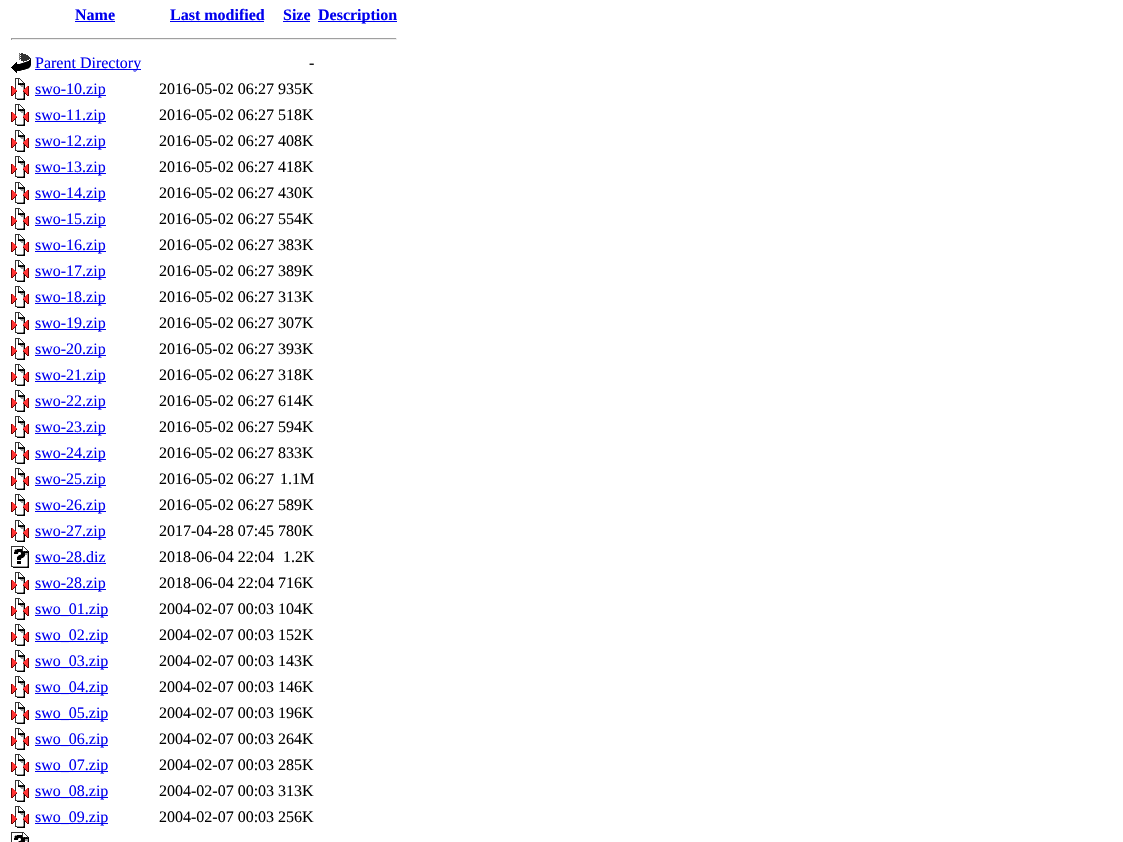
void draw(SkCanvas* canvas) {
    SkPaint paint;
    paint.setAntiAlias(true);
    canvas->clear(0xFFFFFFFF);
    SkFont font1(fontMgr->matchFamilyStyle("Liberation Serif", SkFontStyle::Bold()), 16);
    font1.setSubpixel(true);
    paint.setColor(0xFF0000EE);
    canvas->drawString("Name", 75, 20, font1, paint);
    canvas->drawRect(SkRect::MakeXYWH(75, 21, 40, 1), paint);
    canvas->drawString("Last modified", 170, 20, font1, paint);
    canvas->drawRect(SkRect::MakeXYWH(170, 21, 94, 1), paint);
    canvas->drawString("Size", 283, 20, font1, paint);
    canvas->drawRect(SkRect::MakeXYWH(283, 21, 27, 1), paint);
    canvas->drawRect(SkRect::MakeXYWH(318, 21, 79, 1), paint);
    canvas->drawString("Description", 318, 20, font1, paint);
    paint.setColor(0xFF9F9F9F);
    canvas->drawRect(SkRect::MakeXYWH(11, 38, 386, 1), paint);
    paint.setColor(0xFFEEEEEE);
    canvas->drawRect(SkRect::MakeXYWH(396, 38, 1, 2), paint);
    canvas->drawRect(SkRect::MakeXYWH(11, 39, 386, 1), paint);
    paint.setColor(0xFF9F9F9F);
    canvas->drawRect(SkRect::MakeXYWH(11, 38, 1, 2), paint);
    canvas->drawImageRect(SkImages::DeferredFromEncodedData(SkData::MakeFromFileName("img1.png")), SkRect::MakeXYWH(11, 53, 20, 20), SkSamplingOptions());
    paint.setColor(0xFF0000EE);
    canvas->drawRect(SkRect::MakeXYWH(35, 69, 106, 1), paint);
    SkFont font2(fontMgr->matchFamilyStyle("Liberation Serif", SkFontStyle::Normal()), 16);
    font2.setSubpixel(true);
    canvas->drawString("Parent Directory", 35, 68, font2, paint);
    paint.setColor(0xFF000000);
    canvas->drawString("-", 309, 68, font2, paint);
    canvas->drawImageRect(SkImages::DeferredFromEncodedData(SkData::MakeFromFileName("img2.png")), SkRect::MakeXYWH(11, 78, 18, 22), SkSamplingOptions());
    paint.setColor(0xFF0000EE);
    canvas->drawRect(SkRect::MakeXYWH(35, 95, 71, 1), paint);
    canvas->drawString("swo-10.zip", 35, 94, font2, paint);
    paint.setColor(0xFF000000);
    canvas->drawString("2016-05-02 06:27 935K", 159, 94, font2, paint);
    canvas->drawImageRect(SkImages::DeferredFromEncodedData(SkData::MakeFromFileName("img2.png")), SkRect::MakeXYWH(11, 104, 18, 22), SkSamplingOptions());
    paint.setColor(0xFF0000EE);
    canvas->drawRect(SkRect::MakeXYWH(35, 121, 71, 1), paint);
    canvas->drawString("swo-11.zip", 35, 120, font2, paint);
    paint.setColor(0xFF000000);
    canvas->drawString("2016-05-02 06:27 518K", 159, 120, font2, paint);
    canvas->drawImageRect(SkImages::DeferredFromEncodedData(SkData::MakeFromFileName("img2.png")), SkRect::MakeXYWH(11, 130, 18, 22), SkSamplingOptions());
    paint.setColor(0xFF0000EE);
    canvas->drawRect(SkRect::MakeXYWH(35, 147, 71, 1), paint);
    canvas->drawString("swo-12.zip", 35, 146, font2, paint);
    paint.setColor(0xFF000000);
    canvas->drawString("2016-05-02 06:27 408K", 159, 146, font2, paint);
    canvas->drawImageRect(SkImages::DeferredFromEncodedData(SkData::MakeFromFileName("img2.png")), SkRect::MakeXYWH(11, 156, 18, 22), SkSamplingOptions());
    paint.setColor(0xFF0000EE);
    canvas->drawRect(SkRect::MakeXYWH(35, 173, 71, 1), paint);
    canvas->drawString("swo-13.zip", 35, 172, font2, paint);
    paint.setColor(0xFF000000);
    canvas->drawString("2016-05-02 06:27 418K", 159, 172, font2, paint);
    canvas->drawImageRect(SkImages::DeferredFromEncodedData(SkData::MakeFromFileName("img2.png")), SkRect::MakeXYWH(11, 182, 18, 22), SkSamplingOptions());
    paint.setColor(0xFF0000EE);
    canvas->drawRect(SkRect::MakeXYWH(35, 199, 71, 1), paint);
    canvas->drawString("swo-14.zip", 35, 198, font2, paint);
    paint.setColor(0xFF000000);
    canvas->drawString("2016-05-02 06:27 430K", 159, 198, font2, paint);
    canvas->drawImageRect(SkImages::DeferredFromEncodedData(SkData::MakeFromFileName("img2.png")), SkRect::MakeXYWH(11, 208, 18, 22), SkSamplingOptions());
    paint.setColor(0xFF0000EE);
    canvas->drawRect(SkRect::MakeXYWH(35, 225, 71, 1), paint);
    canvas->drawString("swo-15.zip", 35, 224, font2, paint);
    paint.setColor(0xFF000000);
    canvas->drawString("2016-05-02 06:27 554K", 159, 224, font2, paint);
    canvas->drawImageRect(SkImages::DeferredFromEncodedData(SkData::MakeFromFileName("img2.png")), SkRect::MakeXYWH(11, 234, 18, 22), SkSamplingOptions());
    paint.setColor(0xFF0000EE);
    canvas->drawRect(SkRect::MakeXYWH(35, 251, 71, 1), paint);
    canvas->drawString("swo-16.zip", 35, 250, font2, paint);
    paint.setColor(0xFF000000);
    canvas->drawString("2016-05-02 06:27 383K", 159, 250, font2, paint);
    canvas->drawImageRect(SkImages::DeferredFromEncodedData(SkData::MakeFromFileName("img2.png")), SkRect::MakeXYWH(11, 260, 18, 22), SkSamplingOptions());
    paint.setColor(0xFF0000EE);
    canvas->drawRect(SkRect::MakeXYWH(35, 277, 71, 1), paint);
    canvas->drawString("swo-17.zip", 35, 276, font2, paint);
    paint.setColor(0xFF000000);
    canvas->drawString("2016-05-02 06:27 389K", 159, 276, font2, paint);
    canvas->drawImageRect(SkImages::DeferredFromEncodedData(SkData::MakeFromFileName("img2.png")), SkRect::MakeXYWH(11, 286, 18, 22), SkSamplingOptions());
    paint.setColor(0xFF0000EE);
    canvas->drawRect(SkRect::MakeXYWH(35, 303, 71, 1), paint);
    canvas->drawString("swo-18.zip", 35, 302, font2, paint);
    paint.setColor(0xFF000000);
    canvas->drawString("2016-05-02 06:27 313K", 159, 302, font2, paint);
    canvas->drawImageRect(SkImages::DeferredFromEncodedData(SkData::MakeFromFileName("img2.png")), SkRect::MakeXYWH(11, 312, 18, 22), SkSamplingOptions());
    paint.setColor(0xFF0000EE);
    canvas->drawRect(SkRect::MakeXYWH(35, 329, 71, 1), paint);
    canvas->drawString("swo-19.zip", 35, 328, font2, paint);
    paint.setColor(0xFF000000);
    canvas->drawString("2016-05-02 06:27 307K", 159, 328, font2, paint);
    canvas->drawImageRect(SkImages::DeferredFromEncodedData(SkData::MakeFromFileName("img2.png")), SkRect::MakeXYWH(11, 338, 18, 22), SkSamplingOptions());
    paint.setColor(0xFF0000EE);
    canvas->drawRect(SkRect::MakeXYWH(35, 355, 71, 1), paint);
    canvas->drawString("swo-20.zip", 35, 354, font2, paint);
    paint.setColor(0xFF000000);
    canvas->drawString("2016-05-02 06:27 393K", 159, 354, font2, paint);
    canvas->drawImageRect(SkImages::DeferredFromEncodedData(SkData::MakeFromFileName("img2.png")), SkRect::MakeXYWH(11, 364, 18, 22), SkSamplingOptions());
    paint.setColor(0xFF0000EE);
    canvas->drawRect(SkRect::MakeXYWH(35, 381, 71, 1), paint);
    canvas->drawString("swo-21.zip", 35, 380, font2, paint);
    paint.setColor(0xFF000000);
    canvas->drawString("2016-05-02 06:27 318K", 159, 380, font2, paint);
    canvas->drawImageRect(SkImages::DeferredFromEncodedData(SkData::MakeFromFileName("img2.png")), SkRect::MakeXYWH(11, 390, 18, 22), SkSamplingOptions());
    paint.setColor(0xFF0000EE);
    canvas->drawRect(SkRect::MakeXYWH(35, 407, 71, 1), paint);
    canvas->drawString("swo-22.zip", 35, 406, font2, paint);
    paint.setColor(0xFF000000);
    canvas->drawString("2016-05-02 06:27 614K", 159, 406, font2, paint);
    canvas->drawImageRect(SkImages::DeferredFromEncodedData(SkData::MakeFromFileName("img2.png")), SkRect::MakeXYWH(11, 416, 18, 22), SkSamplingOptions());
    paint.setColor(0xFF0000EE);
    canvas->drawRect(SkRect::MakeXYWH(35, 433, 71, 1), paint);
    canvas->drawString("swo-23.zip", 35, 432, font2, paint);
    paint.setColor(0xFF000000);
    canvas->drawString("2016-05-02 06:27 594K", 159, 432, font2, paint);
    canvas->drawImageRect(SkImages::DeferredFromEncodedData(SkData::MakeFromFileName("img2.png")), SkRect::MakeXYWH(11, 442, 18, 22), SkSamplingOptions());
    paint.setColor(0xFF0000EE);
    canvas->drawRect(SkRect::MakeXYWH(35, 459, 71, 1), paint);
    canvas->drawString("swo-24.zip", 35, 458, font2, paint);
    paint.setColor(0xFF000000);
    canvas->drawString("2016-05-02 06:27 833K", 159, 458, font2, paint);
    canvas->drawImageRect(SkImages::DeferredFromEncodedData(SkData::MakeFromFileName("img2.png")), SkRect::MakeXYWH(11, 468, 18, 22), SkSamplingOptions());
    paint.setColor(0xFF0000EE);
    canvas->drawRect(SkRect::MakeXYWH(35, 485, 71, 1), paint);
    canvas->drawString("swo-25.zip", 35, 484, font2, paint);
    paint.setColor(0xFF000000);
    canvas->drawString("2016-05-02 06:27", 159, 484, font2, paint);
    canvas->drawString("1.1M", 280, 484, font2, paint);
    canvas->drawImageRect(SkImages::DeferredFromEncodedData(SkData::MakeFromFileName("img2.png")), SkRect::MakeXYWH(11, 494, 18, 22), SkSamplingOptions());
    paint.setColor(0xFF0000EE);
    canvas->drawRect(SkRect::MakeXYWH(35, 511, 71, 1), paint);
    canvas->drawString("swo-26.zip", 35, 510, font2, paint);
    paint.setColor(0xFF000000);
    canvas->drawString("2016-05-02 06:27 589K", 159, 510, font2, paint);
    canvas->drawImageRect(SkImages::DeferredFromEncodedData(SkData::MakeFromFileName("img2.png")), SkRect::MakeXYWH(11, 520, 18, 22), SkSamplingOptions());
    paint.setColor(0xFF0000EE);
    canvas->drawRect(SkRect::MakeXYWH(35, 537, 71, 1), paint);
    canvas->drawString("swo-27.zip", 35, 536, font2, paint);
    paint.setColor(0xFF000000);
    canvas->drawString("2017-04-28 07:45 780K", 159, 536, font2, paint);
    canvas->drawImageRect(SkImages::DeferredFromEncodedData(SkData::MakeFromFileName("img3.png")), SkRect::MakeXYWH(11, 546, 18, 22), SkSamplingOptions());
    paint.setColor(0xFF0000EE);
    canvas->drawString("swo-28.diz", 35, 562, font2, paint);
    canvas->drawRect(SkRect::MakeXYWH(35, 563, 71, 1), paint);
    paint.setColor(0xFF000000);
    canvas->drawString("2018-06-04 22:04", 159, 562, font2, paint);
    canvas->drawString("1.2K", 283, 562, font2, paint);
    canvas->drawImageRect(SkImages::DeferredFromEncodedData(SkData::MakeFromFileName("img2.png")), SkRect::MakeXYWH(11, 572, 18, 22), SkSamplingOptions());
    paint.setColor(0xFF0000EE);
    canvas->drawRect(SkRect::MakeXYWH(35, 589, 71, 1), paint);
    canvas->drawString("swo-28.zip", 35, 588, font2, paint);
    paint.setColor(0xFF000000);
    canvas->drawString("2018-06-04 22:04 716K", 159, 588, font2, paint);
    canvas->drawImageRect(SkImages::DeferredFromEncodedData(SkData::MakeFromFileName("img2.png")), SkRect::MakeXYWH(11, 598, 18, 22), SkSamplingOptions());
    paint.setColor(0xFF0000EE);
    canvas->drawRect(SkRect::MakeXYWH(35, 615, 73, 1), paint);
    canvas->drawString("swo_01.zip", 35, 614, font2, paint);
    paint.setColor(0xFF000000);
    canvas->drawString("2004-02-07 00:03 104K", 159, 614, font2, paint);
    canvas->drawImageRect(SkImages::DeferredFromEncodedData(SkData::MakeFromFileName("img2.png")), SkRect::MakeXYWH(11, 624, 18, 22), SkSamplingOptions());
    paint.setColor(0xFF0000EE);
    canvas->drawRect(SkRect::MakeXYWH(35, 641, 73, 1), paint);
    canvas->drawString("swo_02.zip", 35, 640, font2, paint);
    paint.setColor(0xFF000000);
    canvas->drawString("2004-02-07 00:03 152K", 159, 640, font2, paint);
    canvas->drawImageRect(SkImages::DeferredFromEncodedData(SkData::MakeFromFileName("img2.png")), SkRect::MakeXYWH(11, 650, 18, 22), SkSamplingOptions());
    paint.setColor(0xFF0000EE);
    canvas->drawRect(SkRect::MakeXYWH(35, 667, 73, 1), paint);
    canvas->drawString("swo_03.zip", 35, 666, font2, paint);
    paint.setColor(0xFF000000);
    canvas->drawString("2004-02-07 00:03 143K", 159, 666, font2, paint);
    canvas->drawImageRect(SkImages::DeferredFromEncodedData(SkData::MakeFromFileName("img2.png")), SkRect::MakeXYWH(11, 676, 18, 22), SkSamplingOptions());
    paint.setColor(0xFF0000EE);
    canvas->drawRect(SkRect::MakeXYWH(35, 693, 73, 1), paint);
    canvas->drawString("swo_04.zip", 35, 692, font2, paint);
    paint.setColor(0xFF000000);
    canvas->drawString("2004-02-07 00:03 146K", 159, 692, font2, paint);
    canvas->drawImageRect(SkImages::DeferredFromEncodedData(SkData::MakeFromFileName("img2.png")), SkRect::MakeXYWH(11, 702, 18, 22), SkSamplingOptions());
    paint.setColor(0xFF0000EE);
    canvas->drawRect(SkRect::MakeXYWH(35, 719, 73, 1), paint);
    canvas->drawString("swo_05.zip", 35, 718, font2, paint);
    paint.setColor(0xFF000000);
    canvas->drawString("2004-02-07 00:03 196K", 159, 718, font2, paint);
    canvas->drawImageRect(SkImages::DeferredFromEncodedData(SkData::MakeFromFileName("img2.png")), SkRect::MakeXYWH(11, 728, 18, 22), SkSamplingOptions());
    paint.setColor(0xFF0000EE);
    canvas->drawRect(SkRect::MakeXYWH(35, 745, 73, 1), paint);
    canvas->drawString("swo_06.zip", 35, 744, font2, paint);
    paint.setColor(0xFF000000);
    canvas->drawString("2004-02-07 00:03 264K", 159, 744, font2, paint);
    canvas->drawImageRect(SkImages::DeferredFromEncodedData(SkData::MakeFromFileName("img2.png")), SkRect::MakeXYWH(11, 754, 18, 22), SkSamplingOptions());
    paint.setColor(0xFF0000EE);
    canvas->drawRect(SkRect::MakeXYWH(35, 771, 73, 1), paint);
    canvas->drawString("swo_07.zip", 35, 770, font2, paint);
    paint.setColor(0xFF000000);
    canvas->drawString("2004-02-07 00:03 285K", 159, 770, font2, paint);
    canvas->drawImageRect(SkImages::DeferredFromEncodedData(SkData::MakeFromFileName("img2.png")), SkRect::MakeXYWH(11, 780, 18, 22), SkSamplingOptions());
    paint.setColor(0xFF0000EE);
    canvas->drawRect(SkRect::MakeXYWH(35, 797, 73, 1), paint);
    canvas->drawString("swo_08.zip", 35, 796, font2, paint);
    paint.setColor(0xFF000000);
    canvas->drawString("2004-02-07 00:03 313K", 159, 796, font2, paint);
    canvas->drawImageRect(SkImages::DeferredFromEncodedData(SkData::MakeFromFileName("img2.png")), SkRect::MakeXYWH(11, 806, 18, 22), SkSamplingOptions());
    paint.setColor(0xFF0000EE);
    canvas->drawRect(SkRect::MakeXYWH(35, 823, 73, 1), paint);
    canvas->drawString("swo_09.zip", 35, 822, font2, paint);
    paint.setColor(0xFF000000);
    canvas->drawString("2004-02-07 00:03 256K", 159, 822, font2, paint);
    canvas->drawImageRect(SkImages::DeferredFromEncodedData(SkData::MakeFromFileName("img4.png")), SkRect::MakeXYWH(11, 832, 18, 10), SkSamplingOptions());
}
